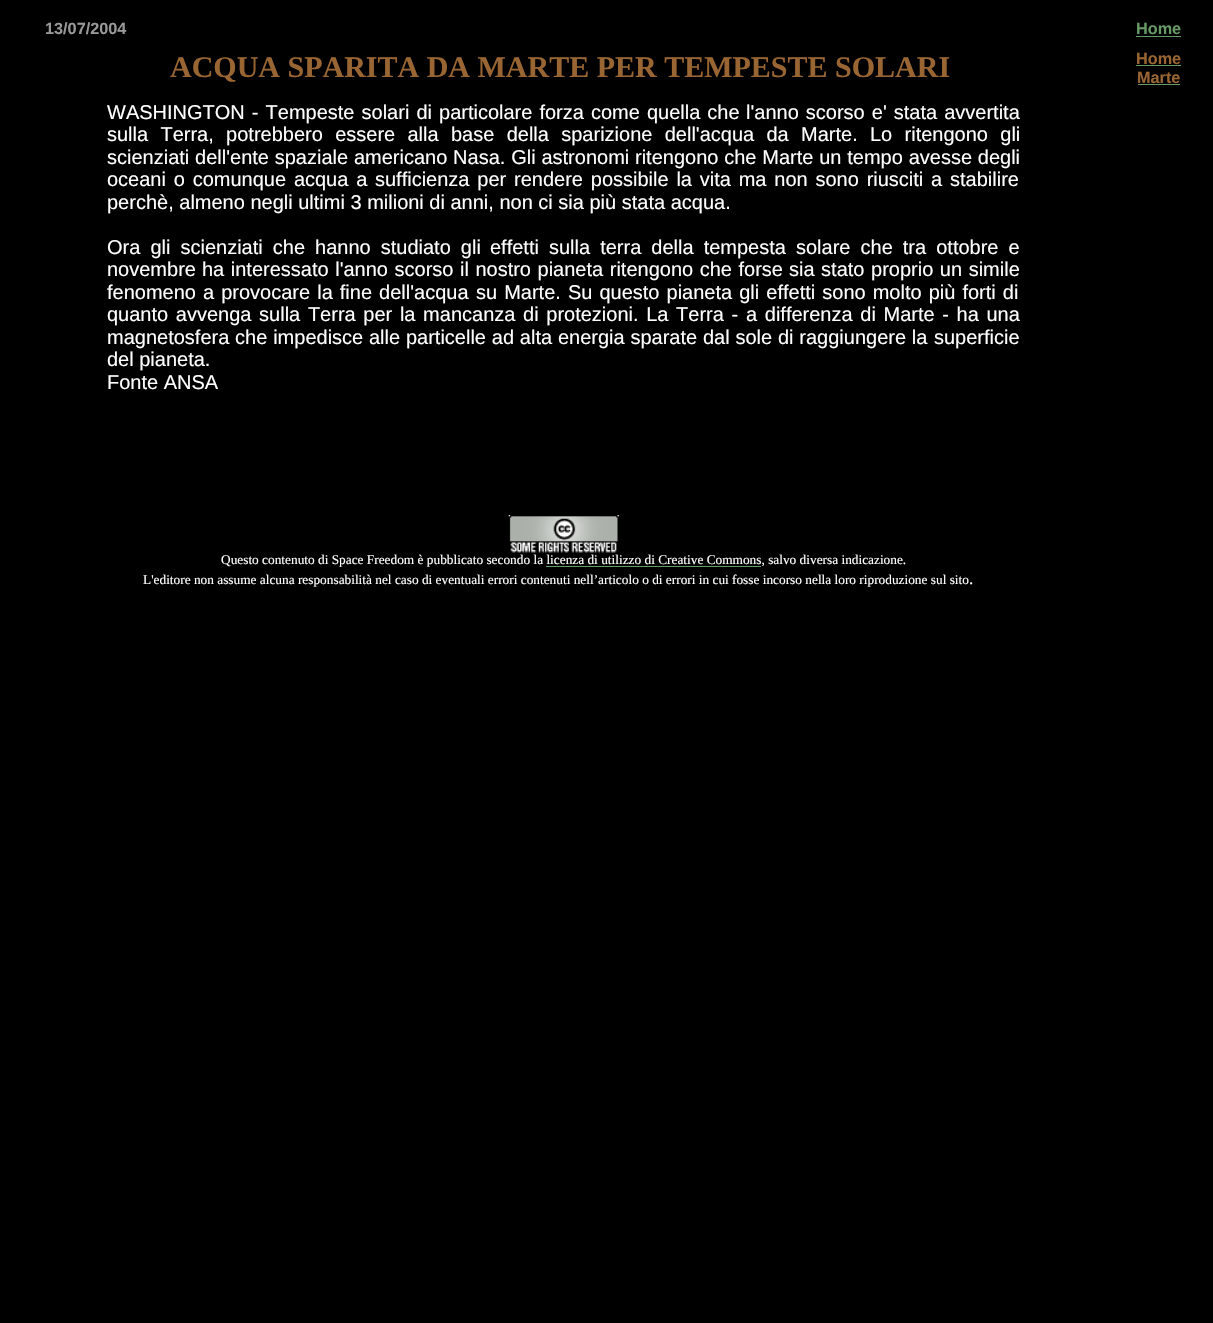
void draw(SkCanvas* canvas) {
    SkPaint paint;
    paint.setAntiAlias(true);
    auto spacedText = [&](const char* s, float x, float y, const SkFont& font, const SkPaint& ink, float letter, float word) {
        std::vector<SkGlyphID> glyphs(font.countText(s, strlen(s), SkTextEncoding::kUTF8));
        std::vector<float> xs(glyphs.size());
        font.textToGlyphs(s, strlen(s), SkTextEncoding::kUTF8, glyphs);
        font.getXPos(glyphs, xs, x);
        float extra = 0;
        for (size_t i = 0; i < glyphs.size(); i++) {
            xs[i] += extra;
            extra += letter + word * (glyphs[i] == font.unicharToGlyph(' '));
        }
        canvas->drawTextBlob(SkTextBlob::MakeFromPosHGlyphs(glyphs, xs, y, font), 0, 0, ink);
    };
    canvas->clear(0xFF000000);
    SkFont font1(fontMgr->matchFamilyStyle("Liberation Sans", SkFontStyle::Bold()), 16.25f);
    font1.setSubpixel(true);
    paint.setColor(0xFF999999);
    canvas->drawString("13/07/2004", 45, 34, font1, paint);
    paint.setColor(0xFF669966);
    canvas->drawString("Home", 1136, 34, font1, paint);
    canvas->drawRect(SkRect::MakeXYWH(1136, 36, 45, 1), paint);
    SkFont font2(fontMgr->matchFamilyStyle("Liberation Serif", SkFontStyle::Bold()), 30);
    font2.setSubpixel(true);
    paint.setColor(0xFF996633);
    canvas->drawString("ACQUA SPARITA DA MARTE PER TEMPESTE SOLARI", 170, 77, font2, paint);
    canvas->drawString("Home", 1136, 64, font1, paint);
    paint.setColor(0xFF669966);
    canvas->drawRect(SkRect::MakeXYWH(1136, 65, 45, 1), paint);
    paint.setColor(0xFF996633);
    canvas->drawString("Marte", 1137, 83, font1, paint);
    paint.setColor(0xFF669966);
    canvas->drawRect(SkRect::MakeXYWH(1138, 84, 42, 1), paint);
    SkFont font3(fontMgr->matchFamilyStyle("Liberation Sans", SkFontStyle::Normal()), 20);
    font3.setSubpixel(true);
    paint.setColor(0xFFFFFFFF);
    spacedText("WASHINGTON - Tempeste solari di particolare forza come quella che", 107, 119, font3, paint, 0, 1.5f);
    spacedText("l'anno scorso e' stata avvertita", 746, 119, font3, paint, 0, 1.5f);
    spacedText("sulla Terra, potrebbero essere alla", 107, 141, font3, paint, 0, 6.75f);
    spacedText("base della sparizione dell'acqua da Marte. Lo ritengono gli", 451, 141, font3, paint, 0, 6.75f);
    spacedText("scienziati dell'ente spaziale americano Nasa. Gli astronomi", 107, 164, font3, paint, 0, 0.25f);
    spacedText("ritengono che Marte un tempo avesse degli", 635, 164, font3, paint, 0, 0.25f);
    spacedText("oceani o comunque acqua a", 107, 186, font3, paint, 0, 2.25f);
    spacedText("sufficienza per rendere possibile la vita ma non sono riusciti a", 375, 186, font3, paint, 0, 2.25f);
    canvas->drawString("stabilire", 950, 186, font3, paint);
    canvas->drawString("perchè, almeno negli ultimi 3 milioni di anni, non ci sia più stata acqua.", 107, 209, font3, paint);
    spacedText("Ora gli scienziati che hanno studiato gli", 107, 254, font3, paint, 0, 4.5f);
    spacedText("effetti sulla terra della tempesta solare che tra ottobre e", 490, 254, font3, paint, 0, 4.5f);
    canvas->drawString("novembre", 107, 276, font3, paint);
    spacedText("ha interessato l'anno scorso il nostro pianeta ritengono che forse", 202, 276, font3, paint, 0, 1);
    spacedText("sia stato proprio un simile", 789, 276, font3, paint, 0, 1);
    spacedText("fenomeno a provocare la fine dell'acqua", 107, 299, font3, paint, 0, 1.5f);
    spacedText("su Marte. Su questo pianeta gli effetti sono molto più forti di", 476, 299, font3, paint, 0, 1.5f);
    spacedText("quanto avvenga sulla Terra per la mancanza di protezioni. La Terra -", 107, 321, font3, paint, 0, 2.1f);
    spacedText("a differenza di Marte - ha una", 746, 321, font3, paint, 0, 2.1f);
    spacedText("magnetosfera che impedisce alle particelle ad alta energia sparate dal sole di raggiungere la", 107, 344, font3, paint, 0, 0.25f);
    canvas->drawString("superficie", 934, 344, font3, paint);
    canvas->drawString("del pianeta.", 107, 366, font3, paint);
    canvas->drawString("Fonte ANSA", 107, 389, font3, paint);
    canvas->drawImageRect(SkImages::DeferredFromEncodedData(SkData::MakeFromFileName("img1.png")), SkRect::MakeXYWH(508, 515, 111, 38), SkSamplingOptions());
    SkFont font4(fontMgr->matchFamilyStyle("Liberation Serif", SkFontStyle::Normal()), 13.33f);
    font4.setSubpixel(true);
    canvas->drawString("Questo contenuto di Space Freedom è pubblicato secondo la licenza di utilizzo di Creative Commons, salvo diversa indicazione.", 221, 564, font4, paint);
    paint.setColor(0xFF669966);
    canvas->drawRect(SkRect::MakeXYWH(546, 566, 215, 1), paint);
    paint.setColor(0xFFFFFFFF);
    canvas->drawString("L'editore non assume alcuna responsabilità nel caso di eventuali errori contenuti nell’articolo o di errori in cui", 143, 584, font4, paint);
    canvas->drawString("fosse incorso nella loro riproduzione sul sito", 732, 584, font4, paint);
    SkFont font5(fontMgr->matchFamilyStyle("Liberation Serif", SkFontStyle::Normal()), 17);
    font5.setSubpixel(true);
    canvas->drawString(".", 969, 584, font5, paint);
}
